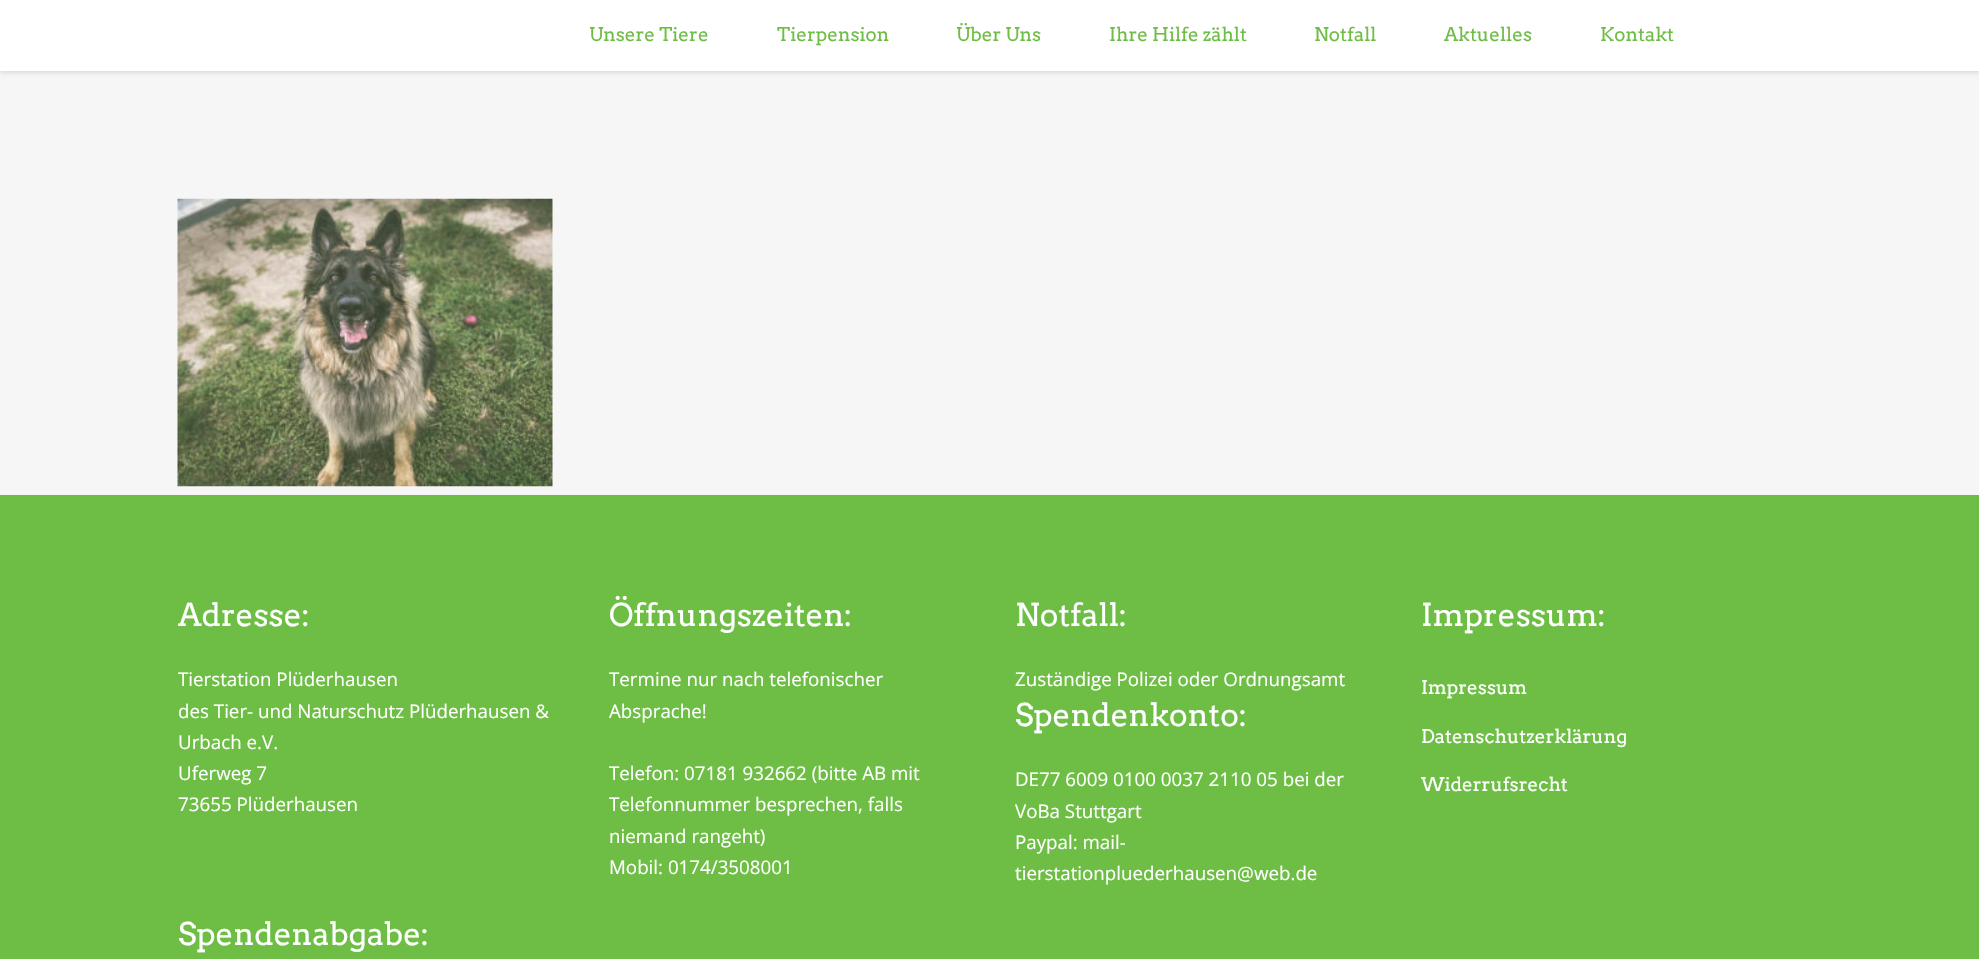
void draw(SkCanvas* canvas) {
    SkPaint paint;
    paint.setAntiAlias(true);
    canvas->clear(0xFFF6F6F6);
    paint.setColor(0x1C000000);
    paint.setMaskFilter(SkMaskFilter::MakeBlur(kNormal_SkBlurStyle, 2));
    canvas->drawRect(SkRect::MakeXYWH(0, 1, 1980, 72), paint);
    paint.setMaskFilter(nullptr);
    paint.setColor(0xFFFFFFFF);
    canvas->drawRect(SkRect::MakeXYWH(0, 0, 1979, 71), paint);
    SkFont font1(fontMgr->matchFamilyStyle("Arvo", SkFontStyle::Normal()), 18.75f);
    font1.setSubpixel(true);
    paint.setColor(0xFF6EBE46);
    canvas->drawString("Unsere Tiere", 589, 41, font1, paint);
    canvas->drawString("Tierpension", 777, 41, font1, paint);
    canvas->drawString("Über Uns", 956, 41, font1, paint);
    canvas->drawString("Ihre Hilfe zählt", 1109, 41, font1, paint);
    canvas->drawString("Notfall", 1314, 41, font1, paint);
    canvas->drawString("Aktuelles", 1444, 41, font1, paint);
    canvas->drawString("Kontakt", 1600, 41, font1, paint);
    canvas->drawImageRect(SkImages::DeferredFromEncodedData(SkData::MakeFromFileName("img1.png")), SkRect::MakeXYWH(177, 198, 376, 289), SkSamplingOptions());
    canvas->drawRect(SkRect::MakeXYWH(0, 495, 1979, 464), paint);
    SkFont font2(fontMgr->matchFamilyStyle("Arvo", SkFontStyle::Normal()), 31.25f);
    font2.setSubpixel(true);
    paint.setColor(0xFFFFFFFF);
    canvas->drawString("Adresse:", 178, 626, font2, paint);
    SkFont font3(fontMgr->matchFamilyStyle("Open Sans", SkFontStyle::Normal()), 18.75f);
    font3.setSubpixel(true);
    canvas->drawString("Tierstation Plüderhausen", 178, 686, font3, paint);
    canvas->drawString("des Tier- und Naturschutz Plüderhausen &", 178, 718, font3, paint);
    canvas->drawString("Urbach e.V.", 178, 749, font3, paint);
    canvas->drawString("Uferweg 7", 178, 780, font3, paint);
    canvas->drawString("73655 Plüderhausen", 178, 811, font3, paint);
    canvas->drawString("Spendenabgabe:", 178, 945, font2, paint);
    canvas->drawString("Öffnungszeiten:", 609, 626, font2, paint);
    canvas->drawString("Termine nur nach telefonischer", 609, 686, font3, paint);
    canvas->drawString("Absprache!", 609, 718, font3, paint);
    canvas->drawString("Telefon: 07181 932662 (bitte AB mit", 609, 780, font3, paint);
    canvas->drawString("Telefonnummer besprechen, falls", 609, 811, font3, paint);
    canvas->drawString("niemand rangeht)", 609, 843, font3, paint);
    canvas->drawString("Mobil: 0174/3508001", 609, 874, font3, paint);
    canvas->drawString("Notfall:", 1015, 626, font2, paint);
    canvas->drawString("Zuständige Polizei oder Ordnungsamt", 1015, 686, font3, paint);
    canvas->drawString("Spendenkonto:", 1015, 726, font2, paint);
    canvas->drawString("DE77 6009 0100 0037 2110 05 bei der", 1015, 786, font3, paint);
    canvas->drawString("VoBa Stuttgart", 1015, 818, font3, paint);
    canvas->drawString("Paypal: mail-", 1015, 849, font3, paint);
    canvas->drawString("tierstationpluederhausen@web.de", 1015, 880, font3, paint);
    canvas->drawString("Impressum:", 1421, 626, font2, paint);
    canvas->drawString("Impressum", 1421, 694, font1, paint);
    canvas->drawString("Datenschutzerklärung", 1421, 743, font1, paint);
    canvas->drawString("Widerrufsrecht", 1421, 791, font1, paint);
}
